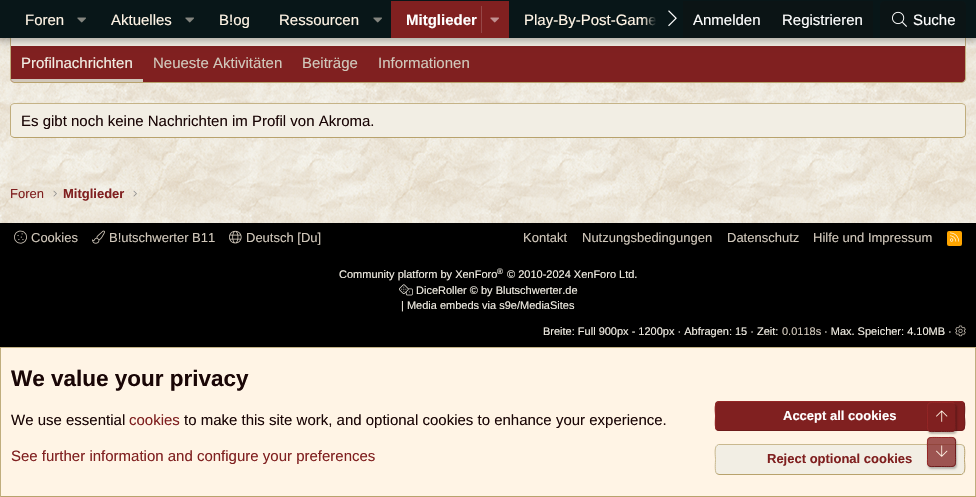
void draw(SkCanvas* canvas) {
    SkPaint paint;
    paint.setAntiAlias(true);
    canvas->clear(0xFFFFFFFF);
    canvas->drawImageRect(SkImages::DeferredFromEncodedData(SkData::MakeFromFileName("img1.png")), SkRect::MakeXYWH(0, 38, 976, 185), SkSamplingOptions());
    paint.setColor(0xFFF2EEE4);
    canvas->drawRoundRect(SkRect::MakeXYWH(10, -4, 956, 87), 4, 4, paint);
    paint.setStyle(SkPaint::kStroke_Style);
    paint.setStrokeWidth(1);
    paint.setColor(0xFFC0AD7D);
    canvas->drawPath(SkPathBuilder().moveTo(964.5f, -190.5f).cubicTo(965, -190, 965.5f, -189, 965.5f, -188).lineTo(965.5f, 79).cubicTo(965.5f, 80, 965, 81, 964.5f, 81.5f).detach(), paint);
    paint.setColor(0xFFB8A26C);
    canvas->drawPath(SkPathBuilder().moveTo(964.5f, 81.5f).lineTo(962, 82.5f).lineTo(14, 82.5f).lineTo(11.5f, 81.5f).detach(), paint);
    paint.setColor(0xFFC0AD7D);
    canvas->drawPath(SkPathBuilder().moveTo(11.5f, 81.5f).cubicTo(11, 81, 10.5f, 80, 10.5f, 79).lineTo(10.5f, -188).cubicTo(10.5f, -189, 11, -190, 11.5f, -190.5f).detach(), paint);
    paint.setStyle(SkPaint::kFill_Style);
    paint.setColor(0xFF802020);
    canvas->drawPath(SkPathBuilder().moveTo(11, 46).lineTo(965, 46).lineTo(965, 79).cubicTo(965, 80.5f, 963.5f, 82, 962, 82).lineTo(14, 82).cubicTo(12.5f, 82, 11, 80.5f, 11, 79).close().detach(), paint);
    paint.setColor(0x4D000000);
    paint.setMaskFilter(SkMaskFilter::MakeBlur(kNormal_SkBlurStyle, 4));
    canvas->drawRect(SkRect::MakeXYWH(-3, -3, 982, 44), paint);
    paint.setMaskFilter(nullptr);
    paint.setColor(0xFF081618);
    canvas->drawRect(SkRect::MakeXYWH(0, 0, 976, 38), paint);
    SkFont font1(fontMgr->matchFamilyStyle("Liberation Sans", SkFontStyle::Normal()), 15);
    font1.setSubpixel(true);
    paint.setColor(0xFFFFF4E5);
    canvas->drawString("Foren", 25, 25, font1, paint);
    canvas->drawImageRect(SkImages::DeferredFromEncodedData(SkData::MakeFromFileName("img2.png")), SkRect::MakeXYWH(77, 17, 9, 6), SkSamplingOptions());
    canvas->drawString("Aktuelles", 111, 25, font1, paint);
    canvas->drawImageRect(SkImages::DeferredFromEncodedData(SkData::MakeFromFileName("img2.png")), SkRect::MakeXYWH(185, 17, 9, 6), SkSamplingOptions());
    canvas->drawString("B!og", 219, 25, font1, paint);
    canvas->drawString("Ressourcen", 279, 25, font1, paint);
    canvas->drawImageRect(SkImages::DeferredFromEncodedData(SkData::MakeFromFileName("img2.png")), SkRect::MakeXYWH(373, 17, 9, 6), SkSamplingOptions());
    paint.setColor(0xFF802020);
    canvas->drawRect(SkRect::MakeXYWH(391, 1, 118, 37), paint);
    SkFont font2(fontMgr->matchFamilyStyle("Liberation Sans", SkFontStyle::Bold()), 15);
    font2.setSubpixel(true);
    paint.setColor(0xFFFFFFFF);
    canvas->drawString("Mitglieder", 406, 25, font2, paint);
    paint.setColor(0xFF964747);
    canvas->drawRect(SkRect::MakeXYWH(481, 6, 1, 27), paint);
    canvas->drawImageRect(SkImages::DeferredFromEncodedData(SkData::MakeFromFileName("img3.png")), SkRect::MakeXYWH(490, 17, 9, 6), SkSamplingOptions());
    paint.setColor(0xFFFFF4E5);
    canvas->drawString("Play-By-Post-Game", 524, 25, font1, paint);
    {
        const SkColor colors[] = {0x00081618, 0xFF081618};
        const float stops[] = {0, 0.33f};
        const SkPoint ends[] = {{643, 19}, {683, 19}};
        paint.setShader(SkGradientShader::MakeLinear(ends, colors, stops, 2, SkTileMode::kClamp));
        paint.setAlpha(255);
    }
    canvas->drawRect(SkRect::MakeXYWH(643, 16, 13, 10), paint);
    canvas->drawImageRect(SkImages::DeferredFromEncodedData(SkData::MakeFromFileName("img4.png")), SkRect::MakeXYWH(668, 10, 9, 17), SkSamplingOptions());
    paint.setShader(nullptr);
    paint.setColor(0xFF0B1415);
    canvas->drawRect(SkRect::MakeXYWH(683, 1, 190, 37), paint);
    paint.setColor(0xFFFFFFFF);
    canvas->drawString("Anmelden", 693, 25, font1, paint);
    canvas->drawString("Registrieren", 782, 25, font1, paint);
    paint.setColor(0xFF0B1415);
    canvas->drawPath(SkPathBuilder().moveTo(884, 1).lineTo(962, 1).cubicTo(964, 1, 966, 3, 966, 5).lineTo(966, 38).lineTo(880, 38).lineTo(880, 5).cubicTo(880, 3, 882, 1, 884, 1).close().detach(), paint);
    canvas->drawImageRect(SkImages::DeferredFromEncodedData(SkData::MakeFromFileName("img5.png")), SkRect::MakeXYWH(892, 11, 15, 16), SkSamplingOptions());
    paint.setColor(0xFFFFFFFF);
    canvas->drawString("Suche", 913, 25, font1, paint);
    paint.setColor(0xFFD1C8BB);
    canvas->drawPath(SkPathBuilder().moveTo(11, 79).lineTo(143, 79).lineTo(143, 82).lineTo(14, 82).cubicTo(12.5f, 82, 11, 80.5f, 11, 79).close().detach(), paint);
    paint.setColor(0xFFF2EEE4);
    canvas->drawString("Profilnachrichten", 21, 68, font1, paint);
    paint.setColor(0xFFD1C8BB);
    canvas->drawString("Neueste Aktivitäten", 153, 68, font1, paint);
    canvas->drawString("Beiträge", 302, 68, font1, paint);
    canvas->drawString("Informationen", 378, 68, font1, paint);
    paint.setColor(0xFFF2EEE4);
    canvas->drawRoundRect(SkRect::MakeXYWH(10, 103, 956, 35), 4, 4, paint);
    paint.setStyle(SkPaint::kStroke_Style);
    paint.setColor(0xFFC5B387);
    canvas->drawPath(SkPathBuilder().moveTo(11.5f, 104.5f).lineTo(14, 103.5f).lineTo(962, 103.5f).lineTo(964.5f, 104.5f).detach(), paint);
    paint.setColor(0xFFC0AD7D);
    canvas->drawPath(SkPathBuilder().moveTo(964.5f, 104.5f).cubicTo(965, 105, 965.5f, 106, 965.5f, 107).lineTo(965.5f, 134).cubicTo(965.5f, 135, 965, 136, 964.5f, 136.5f).detach(), paint);
    paint.setColor(0xFFB8A26C);
    canvas->drawPath(SkPathBuilder().moveTo(964.5f, 136.5f).lineTo(962, 137.5f).lineTo(14, 137.5f).lineTo(11.5f, 136.5f).detach(), paint);
    paint.setColor(0xFFC0AD7D);
    canvas->drawPath(SkPathBuilder().moveTo(11.5f, 136.5f).cubicTo(11, 136, 10.5f, 135, 10.5f, 134).lineTo(10.5f, 107).cubicTo(10.5f, 106, 11, 105, 11.5f, 104.5f).detach(), paint);
    paint.setStyle(SkPaint::kFill_Style);
    paint.setColor(0xFF1A0606);
    canvas->drawString("Es gibt noch keine Nachrichten im Profil von Akroma.", 21, 126, font1, paint);
    SkFont font3(fontMgr->matchFamilyStyle("Liberation Sans", SkFontStyle::Normal()), 13);
    font3.setSubpixel(true);
    paint.setColor(0xFF802020);
    canvas->drawString("Foren", 10, 198, font3, paint);
    canvas->drawImageRect(SkImages::DeferredFromEncodedData(SkData::MakeFromFileName("img6.png")), SkRect::MakeXYWH(53, 190, 4, 7), SkSamplingOptions());
    SkFont font4(fontMgr->matchFamilyStyle("Liberation Sans", SkFontStyle::Bold()), 13);
    font4.setSubpixel(true);
    canvas->drawString("Mitglieder", 63, 198, font4, paint);
    canvas->drawImageRect(SkImages::DeferredFromEncodedData(SkData::MakeFromFileName("img7.png")), SkRect::MakeXYWH(133, 190, 4, 7), SkSamplingOptions());
    paint.setColor(0xFF000000);
    canvas->drawRect(SkRect::MakeXYWH(0, 223, 976, 124), paint);
    canvas->drawImageRect(SkImages::DeferredFromEncodedData(SkData::MakeFromFileName("img8.png")), SkRect::MakeXYWH(14, 230, 13, 14), SkSamplingOptions());
    paint.setColor(0xFFD1C8BB);
    canvas->drawString("Cookies", 31, 242, font3, paint);
    canvas->drawImageRect(SkImages::DeferredFromEncodedData(SkData::MakeFromFileName("img9.png")), SkRect::MakeXYWH(92, 230, 13, 14), SkSamplingOptions());
    canvas->drawString("B!utschwerter B11", 109, 242, font3, paint);
    canvas->drawImageRect(SkImages::DeferredFromEncodedData(SkData::MakeFromFileName("img10.png")), SkRect::MakeXYWH(229, 230, 13, 14), SkSamplingOptions());
    canvas->drawString("Deutsch [Du]", 246, 242, font3, paint);
    canvas->drawString("Kontakt", 523, 242, font3, paint);
    canvas->drawString("Nutzungsbedingungen", 582, 242, font3, paint);
    canvas->drawString("Datenschutz", 727, 242, font3, paint);
    canvas->drawString("Hilfe und Impressum", 813, 242, font3, paint);
    paint.setColor(0xFFFFA500);
    canvas->drawRoundRect(SkRect::MakeXYWH(947, 231, 15, 15), 2, 2, paint);
    canvas->drawImageRect(SkImages::DeferredFromEncodedData(SkData::MakeFromFileName("img11.png")), SkRect::MakeXYWH(950, 232, 10, 10), SkSamplingOptions());
    SkFont font5(fontMgr->matchFamilyStyle("Liberation Sans", SkFontStyle::Normal()), 11);
    font5.setSubpixel(true);
    paint.setColor(0xFFF2EEE4);
    canvas->drawString("Community platform by XenForo", 339, 278, font5, paint);
    SkFont font6(fontMgr->matchFamilyStyle("Liberation Sans", SkFontStyle::Normal()), 8);
    font6.setSubpixel(true);
    canvas->drawString("®", 497, 274, font6, paint);
    canvas->drawString("© 2010-2024 XenForo Ltd.", 507, 278, font5, paint);
    canvas->drawImageRect(SkImages::DeferredFromEncodedData(SkData::MakeFromFileName("img12.png")), SkRect::MakeXYWH(399, 284, 14, 12), SkSamplingOptions());
    canvas->drawString("DiceRoller © by Blutschwerter.de", 416, 294, font5, paint);
    canvas->drawString("| Media embeds via s9e/MediaSites", 401, 309, font5, paint);
    canvas->drawString("Breite: Full 900px - 1200px · Abfragen: 15 · Zeit:", 543, 335, font5, paint);
    paint.setColor(0xFFD1C8BB);
    canvas->drawString("0.0118s", 782, 335, font5, paint);
    paint.setColor(0xFFF2EEE4);
    canvas->drawString("· Max. Speicher: 4.10MB ·", 824, 335, font5, paint);
    canvas->drawImageRect(SkImages::DeferredFromEncodedData(SkData::MakeFromFileName("img13.png")), SkRect::MakeXYWH(955, 325, 11, 12), SkSamplingOptions());
    paint.setColor(0xFFFFF4E5);
    canvas->drawRect(SkRect::MakeXYWH(1, 348, 974, 148), paint);
    paint.setColor(0xFFC5B387);
    canvas->drawRect(SkRect::MakeXYWH(0, 347, 976, 1), paint);
    paint.setColor(0xFFC0AD7D);
    canvas->drawRect(SkRect::MakeXYWH(975, 347, 1, 150), paint);
    paint.setColor(0xFFB8A26C);
    canvas->drawRect(SkRect::MakeXYWH(0, 496, 976, 1), paint);
    paint.setColor(0xFFC0AD7D);
    canvas->drawRect(SkRect::MakeXYWH(0, 347, 1, 150), paint);
    SkFont font7(fontMgr->matchFamilyStyle("Liberation Sans", SkFontStyle::Bold()), 22.5f);
    font7.setSubpixel(true);
    paint.setColor(0xFF1A0606);
    canvas->drawString("We value your privacy", 11, 386, font7, paint);
    canvas->drawString("We use essential", 11, 425, font1, paint);
    paint.setColor(0xFF802020);
    canvas->drawString("cookies", 129, 425, font1, paint);
    paint.setColor(0xFF1A0606);
    canvas->drawString("to make this site work, and optional cookies to enhance your experience.", 184, 425, font1, paint);
    paint.setColor(0xFF802020);
    canvas->drawString("See further information and configure your preferences", 11, 461, font1, paint);
    canvas->drawRoundRect(SkRect::MakeXYWH(715, 401, 250, 30), 4, 4, paint);
    paint.setStyle(SkPaint::kStroke_Style);
    paint.setColor(0xFF6C1B1B);
    canvas->drawPath(SkPathBuilder().moveTo(963.5f, 402.5f).cubicTo(965.5f, 404.5f, 964.5f, 413, 964.5f, 416).cubicTo(964.5f, 419, 966, 427.5f, 963, 429.5f).lineTo(961.5f, 430.5f).lineTo(719, 430.5f).lineTo(716.5f, 429.5f).detach(), paint);
    paint.setColor(0xFF942525);
    canvas->drawPath(SkPathBuilder().moveTo(716.5f, 429.5f).cubicTo(714.5f, 427.5f, 715.5f, 419, 715.5f, 416).cubicTo(715.5f, 413, 714, 404.5f, 717, 402.5f).lineTo(718.5f, 401.5f).lineTo(961, 401.5f).lineTo(963.5f, 402.5f).detach(), paint);
    paint.setStyle(SkPaint::kFill_Style);
    paint.setColor(0xFFFFFFFF);
    canvas->drawString("Accept all cookies", 783, 420, font4, paint);
    paint.setColor(0xFFF2EEE4);
    canvas->drawRoundRect(SkRect::MakeXYWH(715, 444, 250, 31), 4, 4, paint);
    paint.setStyle(SkPaint::kStroke_Style);
    paint.setColor(0xFFB8A26C);
    canvas->drawPath(SkPathBuilder().moveTo(963.5f, 445.5f).cubicTo(965.5f, 448, 964.5f, 456.5f, 964.5f, 459.5f).cubicTo(964.5f, 462.5f, 966, 471.5f, 963, 473.5f).lineTo(961.5f, 474.5f).lineTo(719, 474.5f).lineTo(716.5f, 473.5f).detach(), paint);
    paint.setColor(0xFFC9B88E);
    canvas->drawPath(SkPathBuilder().moveTo(716.5f, 473.5f).cubicTo(714.5f, 471, 715.5f, 462.5f, 715.5f, 459.5f).cubicTo(715.5f, 456.5f, 714, 447.5f, 717, 445.5f).lineTo(718.5f, 444.5f).lineTo(961, 444.5f).lineTo(963.5f, 445.5f).detach(), paint);
    paint.setStyle(SkPaint::kFill_Style);
    paint.setColor(0xFF802020);
    canvas->drawString("Reject optional cookies", 767, 463, font4, paint);
    canvas->save();
    canvas->clipPath(SkPathBuilder(SkPathFillType::kEvenOdd).moveTo(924, 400).lineTo(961, 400).lineTo(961, 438).lineTo(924, 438).close().moveTo(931, 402).lineTo(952, 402).cubicTo(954, 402, 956, 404, 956, 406).lineTo(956, 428).cubicTo(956, 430, 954, 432, 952, 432).lineTo(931, 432).cubicTo(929, 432, 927, 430, 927, 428).lineTo(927, 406).cubicTo(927, 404, 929, 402, 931, 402).close().detach(), true);
    paint.setColor(0x40000000);
    paint.setMaskFilter(SkMaskFilter::MakeBlur(kNormal_SkBlurStyle, 1));
    canvas->drawRoundRect(SkRect::MakeXYWH(928, 404, 29, 30), 4, 4, paint);
    paint.setMaskFilter(nullptr);
    canvas->restore();
    paint.setColor(0xBF802020);
    canvas->drawRoundRect(SkRect::MakeXYWH(927, 402, 29, 30), 4, 4, paint);
    paint.setStyle(SkPaint::kStroke_Style);
    paint.setColor(0xFF6C1B1B);
    canvas->drawPath(SkPathBuilder().moveTo(954.5f, 403.5f).cubicTo(956, 405, 955.5f, 408, 955.5f, 409.5f).lineTo(955.5f, 417).cubicTo(955.5f, 433.5f, 957.5f, 431.5f, 941.5f, 431.5f).lineTo(934.5f, 431.5f).cubicTo(932.5f, 431.5f, 930, 432, 928.5f, 430.5f).detach(), paint);
    paint.setColor(0xFF942525);
    canvas->drawPath(SkPathBuilder().moveTo(928.5f, 430.5f).cubicTo(927, 429, 927.5f, 426, 927.5f, 424.5f).lineTo(927.5f, 417).cubicTo(927.5f, 400.5f, 925.5f, 402.5f, 941.5f, 402.5f).lineTo(948.5f, 402.5f).cubicTo(950.5f, 402.5f, 953, 402, 954.5f, 403.5f).detach(), paint);
    canvas->drawImageRect(SkImages::DeferredFromEncodedData(SkData::MakeFromFileName("img14.png")), SkRect::MakeXYWH(936, 410, 12, 12), SkSamplingOptions());
    canvas->save();
    canvas->clipPath(SkPathBuilder(SkPathFillType::kEvenOdd).moveTo(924, 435).lineTo(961, 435).lineTo(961, 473).lineTo(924, 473).close().moveTo(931, 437).lineTo(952, 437).cubicTo(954, 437, 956, 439, 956, 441).lineTo(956, 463).cubicTo(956, 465, 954, 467, 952, 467).lineTo(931, 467).cubicTo(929, 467, 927, 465, 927, 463).lineTo(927, 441).cubicTo(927, 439, 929, 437, 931, 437).close().detach(), true);
    paint.setStyle(SkPaint::kFill_Style);
    paint.setColor(0x40000000);
    paint.setMaskFilter(SkMaskFilter::MakeBlur(kNormal_SkBlurStyle, 1));
    canvas->drawRoundRect(SkRect::MakeXYWH(928, 439, 29, 30), 4, 4, paint);
    paint.setMaskFilter(nullptr);
    canvas->restore();
    paint.setColor(0xBF802020);
    canvas->drawRoundRect(SkRect::MakeXYWH(927, 437, 29, 30), 4, 4, paint);
    paint.setStyle(SkPaint::kStroke_Style);
    paint.setColor(0xFF6C1B1B);
    canvas->drawPath(SkPathBuilder().moveTo(954.5f, 438.5f).cubicTo(956, 440, 955.5f, 443, 955.5f, 444.5f).lineTo(955.5f, 452).cubicTo(955.5f, 468.5f, 957.5f, 466.5f, 941.5f, 466.5f).lineTo(934.5f, 466.5f).cubicTo(932.5f, 466.5f, 930, 467, 928.5f, 465.5f).detach(), paint);
    paint.setColor(0xFF942525);
    canvas->drawPath(SkPathBuilder().moveTo(928.5f, 465.5f).cubicTo(927, 464, 927.5f, 461, 927.5f, 459.5f).lineTo(927.5f, 452).cubicTo(927.5f, 435.5f, 925.5f, 437.5f, 941.5f, 437.5f).lineTo(948.5f, 437.5f).cubicTo(950.5f, 437.5f, 953, 437, 954.5f, 438.5f).detach(), paint);
    canvas->drawImageRect(SkImages::DeferredFromEncodedData(SkData::MakeFromFileName("img15.png")), SkRect::MakeXYWH(936, 445, 12, 12), SkSamplingOptions());
}
